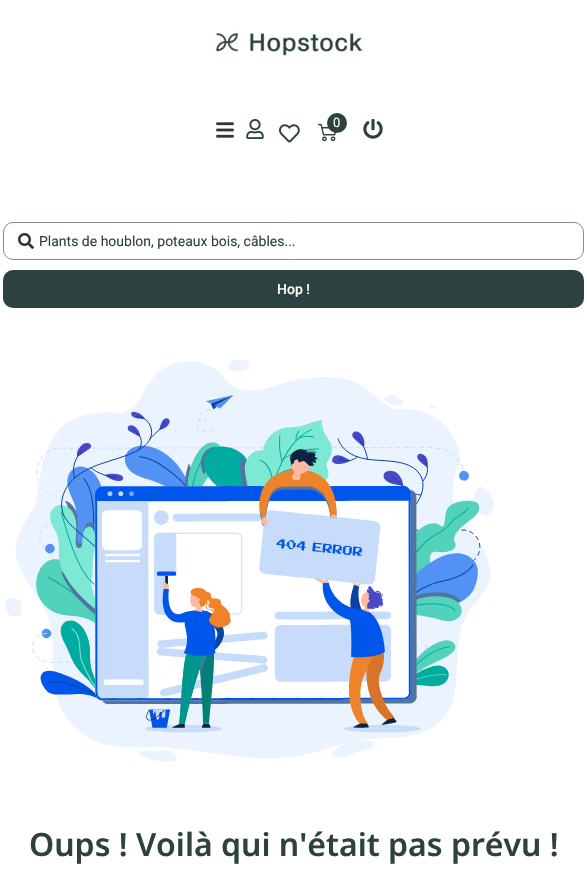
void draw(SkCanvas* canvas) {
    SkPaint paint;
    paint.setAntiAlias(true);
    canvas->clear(0xFFFFFFFF);
    canvas->drawImageRect(SkImages::DeferredFromEncodedData(SkData::MakeFromFileName("img1.png")), SkRect::MakeXYWH(215, 31, 149, 26), SkSamplingOptions());
    canvas->drawImageRect(SkImages::DeferredFromEncodedData(SkData::MakeFromFileName("img2.png")), SkRect::MakeXYWH(216, 122, 18, 16), SkSamplingOptions());
    canvas->drawImageRect(SkImages::DeferredFromEncodedData(SkData::MakeFromFileName("img3.png")), SkRect::MakeXYWH(246, 119, 18, 20), SkSamplingOptions());
    canvas->drawImageRect(SkImages::DeferredFromEncodedData(SkData::MakeFromFileName("img4.png")), SkRect::MakeXYWH(279, 124, 21, 19), SkSamplingOptions());
    paint.setColor(0xFF2C4241);
    canvas->drawCircle(337, 123, 10, paint);
    SkFont font1(fontMgr->matchFamilyStyle("Roboto", SkFontStyle::Normal()), 13);
    font1.setSubpixel(true);
    paint.setColor(0xFFFFFCF2);
    canvas->drawString("0", 333, 127, font1, paint);
    canvas->drawImageRect(SkImages::DeferredFromEncodedData(SkData::MakeFromFileName("img5.png")), SkRect::MakeXYWH(318, 123, 19, 19), SkSamplingOptions());
    canvas->drawImageRect(SkImages::DeferredFromEncodedData(SkData::MakeFromFileName("img6.png")), SkRect::MakeXYWH(363, 119, 20, 20), SkSamplingOptions());
    paint.setStyle(SkPaint::kStroke_Style);
    paint.setStrokeWidth(1);
    paint.setColor(0xFF838F8F);
    canvas->drawRoundRect(SkRect::MakeXYWH(3.5f, 222.5f, 580, 37), 9.5f, 9.5f, paint);
    canvas->drawImageRect(SkImages::DeferredFromEncodedData(SkData::MakeFromFileName("img7.png")), SkRect::MakeXYWH(18, 233, 16, 16), SkSamplingOptions());
    SkFont font2(fontMgr->matchFamilyStyle("Roboto", SkFontStyle::Normal()), 14);
    font2.setSubpixel(true);
    paint.setStyle(SkPaint::kFill_Style);
    paint.setColor(0xFF2C4241);
    canvas->drawString("Plants de houblon, poteaux bois, câbles...", 39, 246, font2, paint);
    canvas->drawRoundRect(SkRect::MakeXYWH(3, 270, 581, 38), 10, 10, paint);
    SkFont font3(fontMgr->matchFamilyStyle("Roboto", SkFontStyle(500, SkFontStyle::kNormal_Width, SkFontStyle::kUpright_Slant)), 14);
    font3.setSubpixel(true);
    paint.setColor(0xFFFFFCF2);
    canvas->drawString("Hop !", 277, 294, font3, paint);
    canvas->drawImageRect(SkImages::DeferredFromEncodedData(SkData::MakeFromFileName("img8.png")), SkRect::MakeXYWH(5, 360, 489, 402), SkSamplingOptions());
    SkFont font4(fontMgr->matchFamilyStyle("Noto Sans", SkFontStyle(600, SkFontStyle::kNormal_Width, SkFontStyle::kUpright_Slant)), 32);
    font4.setSubpixel(true);
    paint.setColor(0xFF2C4241);
    canvas->drawString("Oups ! Voilà qui n'était pas prévu !", 29, 856, font4, paint);
}
